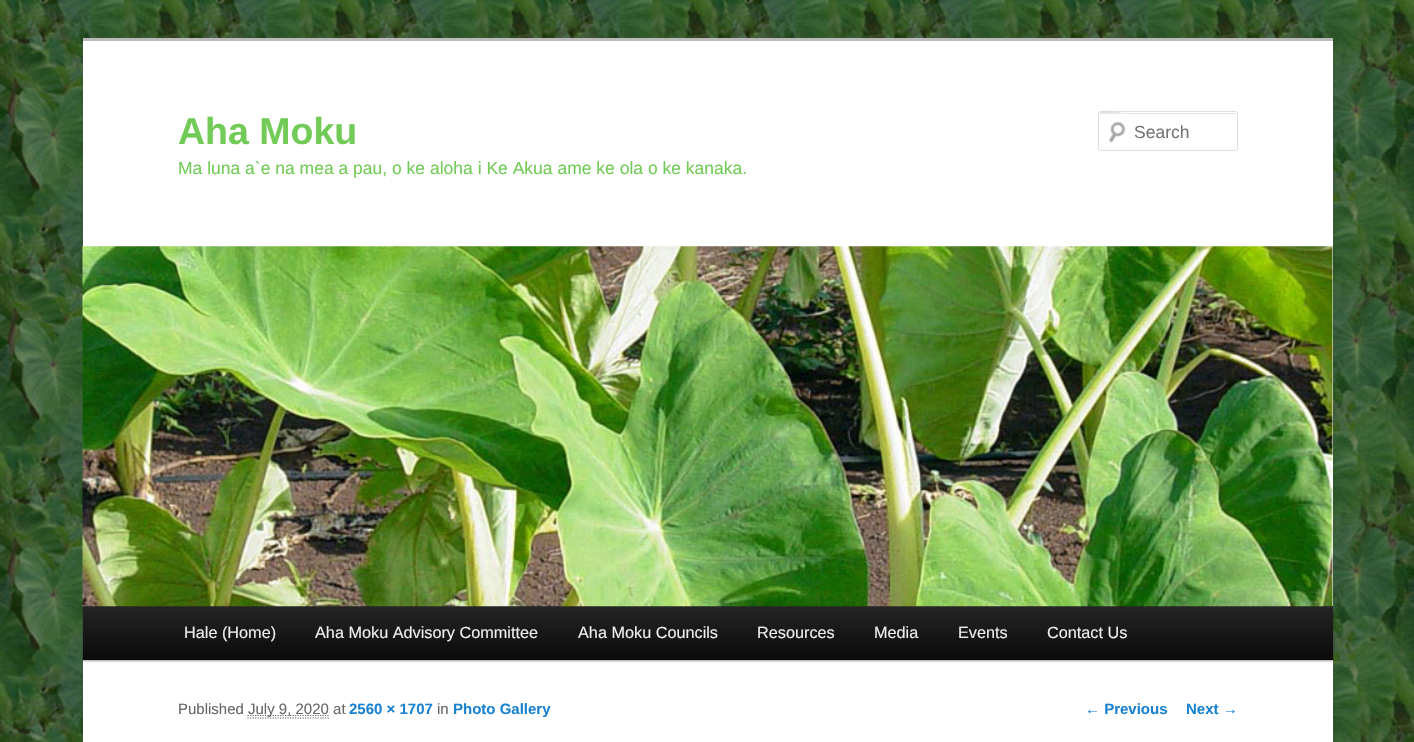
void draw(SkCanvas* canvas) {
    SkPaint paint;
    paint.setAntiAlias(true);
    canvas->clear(0xFFFFFFFF);
    canvas->drawImageRect(SkImages::DeferredFromEncodedData(SkData::MakeFromFileName("img1.png")), SkRect::MakeXYWH(0, 0, 1414, 742), SkSamplingOptions());
    paint.setColor(0xFFFFFFFF);
    canvas->drawRect(SkRect::MakeXYWH(83, 41, 1250, 701), paint);
    paint.setColor(0xFFBBBBBB);
    canvas->drawRect(SkRect::MakeXYWH(83, 38, 1250, 3), paint);
    SkFont font1(fontMgr->matchFamilyStyle("Liberation Sans", SkFontStyle::Bold()), 37.5f);
    font1.setSubpixel(true);
    paint.setColor(0xFF72CB57);
    canvas->drawString("Aha Moku", 178, 144, font1, paint);
    SkFont font2(fontMgr->matchFamilyStyle("Liberation Sans", SkFontStyle::Normal()), 17.5f);
    font2.setSubpixel(true);
    canvas->drawString("Ma luna a`e na mea a pau, o ke aloha i Ke Akua ame ke ola o ke kanaka.", 178, 174, font2, paint);
    canvas->drawImageRect(SkImages::DeferredFromEncodedData(SkData::MakeFromFileName("img2.png")), SkRect::MakeXYWH(1108, 121, 18, 22), SkSamplingOptions());
    paint.setColor(0xFFE6E6E6);
    canvas->drawPath(SkPathBuilder().moveTo(1100, 114).lineTo(1235, 114).cubicTo(1236, 114, 1236, 114, 1236, 115).lineTo(1236, 113).lineTo(1122, 113).cubicTo(1122, 113, 1099, 107, 1099, 115).cubicTo(1099, 114, 1099, 114, 1100, 114).close().detach(), paint);
    paint.setStyle(SkPaint::kStroke_Style);
    paint.setStrokeWidth(1);
    paint.setColor(0xFFDDDDDD);
    canvas->drawRoundRect(SkRect::MakeXYWH(1098.5f, 111.5f, 139, 39), 2, 2, paint);
    paint.setStyle(SkPaint::kFill_Style);
    paint.setColor(0xFF757575);
    canvas->drawString("Search", 1134, 138, font2, paint);
    paint.setColor(0x66000000);
    paint.setMaskFilter(SkMaskFilter::MakeBlur(kNormal_SkBlurStyle, 1));
    canvas->drawRect(SkRect::MakeXYWH(83, 608, 1250, 53), paint);
    paint.setMaskFilter(nullptr);
    {
        const SkColor colors[] = {0xFF252525, 0xFF0A0A0A};
        const float stops[] = {0, 1};
        const SkPoint ends[] = {{708, 606}, {708, 660}};
        paint.setShader(SkGradientShader::MakeLinear(ends, colors, stops, 2, SkTileMode::kClamp));
        paint.setAlpha(255);
    }
    canvas->drawRect(SkRect::MakeXYWH(83, 606, 1250, 54), paint);
    canvas->drawImageRect(SkImages::DeferredFromEncodedData(SkData::MakeFromFileName("img3.png")), SkRect::MakeXYWH(82, 246, 1251, 361), SkSamplingOptions());
    SkFont font3(fontMgr->matchFamilyStyle("Liberation Sans", SkFontStyle::Normal()), 16.25f);
    font3.setSubpixel(true);
    paint.setShader(nullptr);
    paint.setColor(0xFFEEEEEE);
    canvas->drawString("Hale (Home)", 184, 638, font3, paint);
    canvas->drawString("Aha Moku Advisory Committee", 315, 638, font3, paint);
    canvas->drawString("Aha Moku Councils", 578, 638, font3, paint);
    canvas->drawString("Resources", 757, 638, font3, paint);
    canvas->drawString("Media", 874, 638, font3, paint);
    canvas->drawString("Events", 958, 638, font3, paint);
    canvas->drawString("Contact Us", 1047, 638, font3, paint);
    SkFont font4(fontMgr->matchFamilyStyle("Liberation Sans", SkFontStyle::Normal()), 15);
    font4.setSubpixel(true);
    paint.setColor(0xFF666666);
    canvas->drawString("Published", 178, 714, font4, paint);
    paint.setStyle(SkPaint::kStroke_Style);
    paint.setStrokeWidth(1.2f);
    paint.setPathEffect(SkDashPathEffect::Make({{1.25f, 1.25f}}, 0));
    canvas->drawPath(SkPathBuilder().moveTo(247.5f, 718).lineTo(329, 718).detach(), paint);
    paint.setPathEffect(nullptr);
    paint.setPathEffect(SkDashPathEffect::Make({{1.25f, 1.25f}}, 0));
    canvas->drawPath(SkPathBuilder().moveTo(247.5f, 715.5f).lineTo(328.5f, 715.5f).detach(), paint);
    paint.setPathEffect(nullptr);
    paint.setStyle(SkPaint::kFill_Style);
    canvas->drawString("July 9, 2020 at", 248, 714, font4, paint);
    SkFont font5(fontMgr->matchFamilyStyle("Liberation Sans", SkFontStyle::Bold()), 15);
    font5.setSubpixel(true);
    paint.setColor(0xFF1982D1);
    canvas->drawString("2560 × 1707", 349, 714, font5, paint);
    paint.setColor(0xFF666666);
    canvas->drawString("in", 437, 714, font4, paint);
    paint.setColor(0xFF1982D1);
    canvas->drawString("Photo Gallery", 453, 714, font5, paint);
    canvas->drawString("← Previous", 1085, 714, font5, paint);
    canvas->drawString("Next →", 1186, 714, font5, paint);
}
